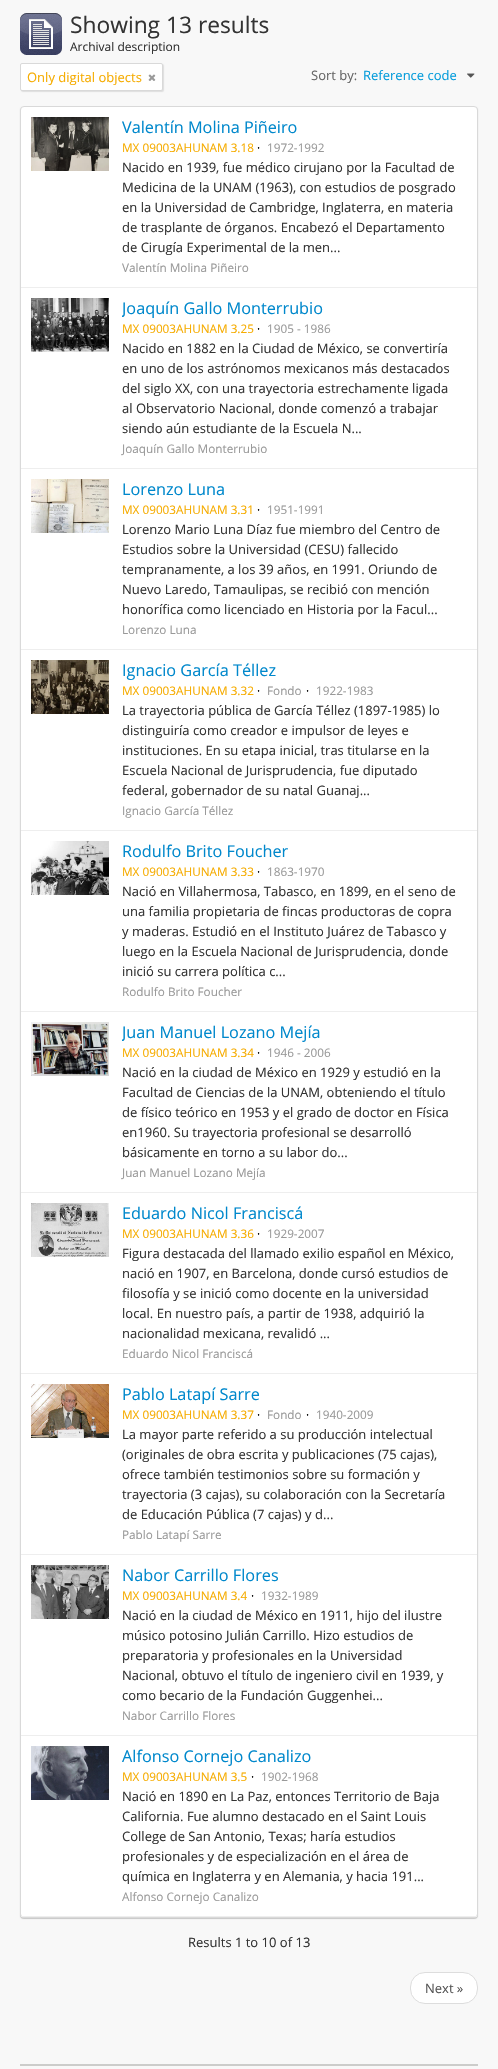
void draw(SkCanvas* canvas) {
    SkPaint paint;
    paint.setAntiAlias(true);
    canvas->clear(0xFFF8F8F8);
    canvas->drawImageRect(SkImages::DeferredFromEncodedData(SkData::MakeFromFileName("img1.png")), SkRect::MakeXYWH(20, 13, 42, 42), SkSamplingOptions());
    SkFont font1(fontMgr->matchFamilyStyle("Open Sans", SkFontStyle::Normal()), 22.75f);
    font1.setSubpixel(true);
    paint.setColor(0xFF333333);
    canvas->drawString("Showing 13 results", 70, 33, font1, paint);
    SkFont font2(fontMgr->matchFamilyStyle("Open Sans", SkFontStyle::Normal()), 12);
    font2.setSubpixel(true);
    canvas->drawString("Archival description", 70, 51, font2, paint);
    paint.setColor(0x1A000000);
    paint.setMaskFilter(SkMaskFilter::MakeBlur(kNormal_SkBlurStyle, 0.5f));
    canvas->drawRoundRect(SkRect::MakeXYWH(21, 64, 143, 28), 2, 2, paint);
    paint.setMaskFilter(nullptr);
    paint.setColor(0xFFFFFFFF);
    canvas->drawRoundRect(SkRect::MakeXYWH(20.5f, 63.5f, 142, 27), 1.5f, 1.5f, paint);
    paint.setStyle(SkPaint::kStroke_Style);
    paint.setStrokeWidth(1);
    paint.setColor(0xFFD9D9D9);
    canvas->drawRoundRect(SkRect::MakeXYWH(20.5f, 63.5f, 142, 27), 1.5f, 1.5f, paint);
    SkFont font3(fontMgr->matchFamilyStyle("Open Sans", SkFontStyle::Normal()), 13);
    font3.setSubpixel(true);
    paint.setStyle(SkPaint::kFill_Style);
    paint.setColor(0xFFF6AC00);
    canvas->drawString("Only digital objects", 27, 82, font3, paint);
    canvas->drawImageRect(SkImages::DeferredFromEncodedData(SkData::MakeFromFileName("img2.png")), SkRect::MakeXYWH(148, 74, 8, 7), SkSamplingOptions());
    paint.setColor(0xFF666666);
    canvas->drawString("Sort by:", 311, 80, font3, paint);
    paint.setColor(0xFF049CDB);
    canvas->drawString("Reference code", 363, 80, font3, paint);
    canvas->drawImageRect(SkImages::DeferredFromEncodedData(SkData::MakeFromFileName("img3.png")), SkRect::MakeXYWH(467, 73, 8, 5), SkSamplingOptions());
    paint.setColor(0x33000000);
    paint.setMaskFilter(SkMaskFilter::MakeBlur(kNormal_SkBlurStyle, 0.5f));
    canvas->drawRoundRect(SkRect::MakeXYWH(20, 107, 458, 1812), 4, 4, paint);
    paint.setMaskFilter(nullptr);
    paint.setColor(0xFFFFFFFF);
    canvas->drawRoundRect(SkRect::MakeXYWH(20.5f, 106.5f, 457, 1811), 3.5f, 3.5f, paint);
    paint.setStyle(SkPaint::kStroke_Style);
    paint.setColor(0xFFD9D9D9);
    canvas->drawRoundRect(SkRect::MakeXYWH(20.5f, 106.5f, 457, 1811), 3.5f, 3.5f, paint);
    paint.setStyle(SkPaint::kFill_Style);
    paint.setColor(0xFFEEEEEE);
    canvas->drawRect(SkRect::MakeXYWH(21, 287, 456, 1), paint);
    canvas->drawImageRect(SkImages::DeferredFromEncodedData(SkData::MakeFromFileName("img4.png")), SkRect::MakeXYWH(31, 117, 78, 54), SkSamplingOptions());
    SkFont font4(fontMgr->matchFamilyStyle("Open Sans", SkFontStyle::Normal()), 16.25f);
    font4.setSubpixel(true);
    paint.setColor(0xFF0088CC);
    canvas->drawString("Valentín Molina Piñeiro", 122, 133, font4, paint);
    SkFont font5(fontMgr->matchFamilyStyle("Open Sans", SkFontStyle::Normal()), 11.75f);
    font5.setSubpixel(true);
    paint.setColor(0xFFF6AC00);
    canvas->drawString("MX 09003AHUNAM 3.18", 122, 152, font5, paint);
    paint.setColor(0xFF000000);
    canvas->drawString("·", 257, 152, font5, paint);
    paint.setColor(0xFF999999);
    canvas->drawString("1972-1992", 267, 152, font5, paint);
    paint.setColor(0xFF333333);
    canvas->drawString("Nacido en 1939, fue médico cirujano por la Facultad de", 122, 172, font3, paint);
    canvas->drawString("Medicina de la UNAM (1963), con estudios de posgrado", 122, 192, font3, paint);
    canvas->drawString("en la Universidad de Cambridge, Inglaterra, en materia", 122, 212, font3, paint);
    canvas->drawString("de trasplante de órganos. Encabezó el Departamento", 122, 232, font3, paint);
    canvas->drawString("de Cirugía Experimental de la men...", 122, 252, font3, paint);
    paint.setColor(0xFF999999);
    canvas->drawString("Valentín Molina Piñeiro", 122, 272, font5, paint);
    paint.setColor(0xFFEEEEEE);
    canvas->drawRect(SkRect::MakeXYWH(21, 468, 456, 1), paint);
    canvas->drawImageRect(SkImages::DeferredFromEncodedData(SkData::MakeFromFileName("img5.png")), SkRect::MakeXYWH(31, 298, 78, 54), SkSamplingOptions());
    canvas->save();
    canvas->clipRect(SkRect::MakeXYWH(122, 298, 336, 20));
    paint.setColor(0xFF0088CC);
    canvas->drawString("Joaquín Gallo Monterrubio", 122, 314, font4, paint);
    canvas->restore();
    paint.setColor(0xFFF6AC00);
    canvas->drawString("MX 09003AHUNAM 3.25", 122, 333, font5, paint);
    paint.setColor(0xFF000000);
    canvas->drawString("·", 257, 333, font5, paint);
    paint.setColor(0xFF999999);
    canvas->drawString("1905 - 1986", 267, 333, font5, paint);
    paint.setColor(0xFF333333);
    canvas->drawString("Nacido en 1882 en la Ciudad de México, se convertiría", 122, 353, font3, paint);
    canvas->drawString("en uno de los astrónomos mexicanos más destacados", 122, 373, font3, paint);
    canvas->drawString("del siglo XX, con una trayectoria estrechamente ligada", 122, 393, font3, paint);
    canvas->drawString("al Observatorio Nacional, donde comenzó a trabajar", 122, 413, font3, paint);
    canvas->drawString("siendo aún estudiante de la Escuela N...", 122, 433, font3, paint);
    paint.setColor(0xFF999999);
    canvas->drawString("Joaquín Gallo Monterrubio", 122, 453, font5, paint);
    paint.setColor(0xFFEEEEEE);
    canvas->drawRect(SkRect::MakeXYWH(21, 649, 456, 1), paint);
    canvas->drawImageRect(SkImages::DeferredFromEncodedData(SkData::MakeFromFileName("img6.png")), SkRect::MakeXYWH(31, 479, 78, 54), SkSamplingOptions());
    paint.setColor(0xFF0088CC);
    canvas->drawString("Lorenzo Luna", 122, 495, font4, paint);
    paint.setColor(0xFFF6AC00);
    canvas->drawString("MX 09003AHUNAM 3.31", 122, 514, font5, paint);
    paint.setColor(0xFF000000);
    canvas->drawString("·", 257, 514, font5, paint);
    paint.setColor(0xFF999999);
    canvas->drawString("1951-1991", 267, 514, font5, paint);
    paint.setColor(0xFF333333);
    canvas->drawString("Lorenzo Mario Luna Díaz fue miembro del Centro de", 122, 534, font3, paint);
    canvas->drawString("Estudios sobre la Universidad (CESU) fallecido", 122, 554, font3, paint);
    canvas->drawString("tempranamente, a los 39 años, en 1991. Oriundo de", 122, 574, font3, paint);
    canvas->drawString("Nuevo Laredo, Tamaulipas, se recibió con mención", 122, 594, font3, paint);
    canvas->drawString("honorífica como licenciado en Historia por la Facul...", 122, 614, font3, paint);
    paint.setColor(0xFF999999);
    canvas->drawString("Lorenzo Luna", 122, 634, font5, paint);
    paint.setColor(0xFFEEEEEE);
    canvas->drawRect(SkRect::MakeXYWH(21, 830, 456, 1), paint);
    canvas->drawImageRect(SkImages::DeferredFromEncodedData(SkData::MakeFromFileName("img7.png")), SkRect::MakeXYWH(31, 660, 78, 54), SkSamplingOptions());
    paint.setColor(0xFF0088CC);
    canvas->drawString("Ignacio García Téllez", 122, 676, font4, paint);
    paint.setColor(0xFFF6AC00);
    canvas->drawString("MX 09003AHUNAM 3.32", 122, 695, font5, paint);
    paint.setColor(0xFF000000);
    canvas->drawString("·", 257, 695, font5, paint);
    paint.setColor(0xFF999999);
    canvas->drawString("Fondo", 267, 695, font5, paint);
    paint.setColor(0xFF000000);
    canvas->drawString("·", 306, 695, font5, paint);
    paint.setColor(0xFF999999);
    canvas->drawString("1922-1983", 316, 695, font5, paint);
    paint.setColor(0xFF333333);
    canvas->drawString("La trayectoria pública de García Téllez (1897-1985) lo", 122, 715, font3, paint);
    canvas->drawString("distinguiría como creador e impulsor de leyes e", 122, 735, font3, paint);
    canvas->drawString("instituciones. En su etapa inicial, tras titularse en la", 122, 755, font3, paint);
    canvas->drawString("Escuela Nacional de Jurisprudencia, fue diputado", 122, 775, font3, paint);
    canvas->drawString("federal, gobernador de su natal Guanaj...", 122, 795, font3, paint);
    paint.setColor(0xFF999999);
    canvas->drawString("Ignacio García Téllez", 122, 815, font5, paint);
    paint.setColor(0xFFEEEEEE);
    canvas->drawRect(SkRect::MakeXYWH(21, 1011, 456, 1), paint);
    canvas->drawImageRect(SkImages::DeferredFromEncodedData(SkData::MakeFromFileName("img8.png")), SkRect::MakeXYWH(31, 841, 78, 54), SkSamplingOptions());
    paint.setColor(0xFF0088CC);
    canvas->drawString("Rodulfo Brito Foucher", 122, 857, font4, paint);
    paint.setColor(0xFFF6AC00);
    canvas->drawString("MX 09003AHUNAM 3.33", 122, 876, font5, paint);
    paint.setColor(0xFF000000);
    canvas->drawString("·", 257, 876, font5, paint);
    paint.setColor(0xFF999999);
    canvas->drawString("1863-1970", 267, 876, font5, paint);
    paint.setColor(0xFF333333);
    canvas->drawString("Nació en Villahermosa, Tabasco, en 1899, en el seno de", 122, 896, font3, paint);
    canvas->drawString("una familia propietaria de fincas productoras de copra", 122, 916, font3, paint);
    canvas->drawString("y maderas. Estudió en el Instituto Juárez de Tabasco y", 122, 936, font3, paint);
    canvas->drawString("luego en la Escuela Nacional de Jurisprudencia, donde", 122, 956, font3, paint);
    canvas->drawString("inició su carrera política c...", 122, 976, font3, paint);
    paint.setColor(0xFF999999);
    canvas->drawString("Rodulfo Brito Foucher", 122, 996, font5, paint);
    paint.setColor(0xFFEEEEEE);
    canvas->drawRect(SkRect::MakeXYWH(21, 1192, 456, 1), paint);
    canvas->drawImageRect(SkImages::DeferredFromEncodedData(SkData::MakeFromFileName("img9.png")), SkRect::MakeXYWH(31, 1022, 78, 54), SkSamplingOptions());
    canvas->save();
    canvas->clipRect(SkRect::MakeXYWH(122, 1022, 336, 20));
    paint.setColor(0xFF0088CC);
    canvas->drawString("Juan Manuel Lozano Mejía", 122, 1038, font4, paint);
    canvas->restore();
    paint.setColor(0xFFF6AC00);
    canvas->drawString("MX 09003AHUNAM 3.34", 122, 1057, font5, paint);
    paint.setColor(0xFF000000);
    canvas->drawString("·", 257, 1057, font5, paint);
    paint.setColor(0xFF999999);
    canvas->drawString("1946 - 2006", 267, 1057, font5, paint);
    paint.setColor(0xFF333333);
    canvas->drawString("Nació en la ciudad de México en 1929 y estudió en la", 122, 1077, font3, paint);
    canvas->drawString("Facultad de Ciencias de la UNAM, obteniendo el título", 122, 1097, font3, paint);
    canvas->drawString("de físico teórico en 1953 y el grado de doctor en Física", 122, 1117, font3, paint);
    canvas->drawString("en1960. Su trayectoria profesional se desarrolló", 122, 1137, font3, paint);
    canvas->drawString("básicamente en torno a su labor do...", 122, 1157, font3, paint);
    paint.setColor(0xFF999999);
    canvas->drawString("Juan Manuel Lozano Mejía", 122, 1177, font5, paint);
    paint.setColor(0xFFEEEEEE);
    canvas->drawRect(SkRect::MakeXYWH(21, 1373, 456, 1), paint);
    canvas->drawImageRect(SkImages::DeferredFromEncodedData(SkData::MakeFromFileName("img10.png")), SkRect::MakeXYWH(31, 1203, 78, 54), SkSamplingOptions());
    paint.setColor(0xFF0088CC);
    canvas->drawString("Eduardo Nicol Franciscá", 122, 1219, font4, paint);
    paint.setColor(0xFFF6AC00);
    canvas->drawString("MX 09003AHUNAM 3.36", 122, 1238, font5, paint);
    paint.setColor(0xFF000000);
    canvas->drawString("·", 257, 1238, font5, paint);
    paint.setColor(0xFF999999);
    canvas->drawString("1929-2007", 267, 1238, font5, paint);
    paint.setColor(0xFF333333);
    canvas->drawString("Figura destacada del llamado exilio español en México,", 122, 1258, font3, paint);
    canvas->drawString("nació en 1907, en Barcelona, donde cursó estudios de", 122, 1278, font3, paint);
    canvas->drawString("filosofía y se inició como docente en la universidad", 122, 1298, font3, paint);
    canvas->drawString("local. En nuestro país, a partir de 1938, adquirió la", 122, 1318, font3, paint);
    canvas->drawString("nacionalidad mexicana, revalidó ...", 122, 1338, font3, paint);
    paint.setColor(0xFF999999);
    canvas->drawString("Eduardo Nicol Franciscá", 122, 1358, font5, paint);
    paint.setColor(0xFFEEEEEE);
    canvas->drawRect(SkRect::MakeXYWH(21, 1554, 456, 1), paint);
    canvas->drawImageRect(SkImages::DeferredFromEncodedData(SkData::MakeFromFileName("img11.png")), SkRect::MakeXYWH(31, 1384, 78, 54), SkSamplingOptions());
    paint.setColor(0xFF0088CC);
    canvas->drawString("Pablo Latapí Sarre", 122, 1400, font4, paint);
    paint.setColor(0xFFF6AC00);
    canvas->drawString("MX 09003AHUNAM 3.37", 122, 1419, font5, paint);
    paint.setColor(0xFF000000);
    canvas->drawString("·", 257, 1419, font5, paint);
    paint.setColor(0xFF999999);
    canvas->drawString("Fondo", 267, 1419, font5, paint);
    paint.setColor(0xFF000000);
    canvas->drawString("·", 306, 1419, font5, paint);
    paint.setColor(0xFF999999);
    canvas->drawString("1940-2009", 316, 1419, font5, paint);
    paint.setColor(0xFF333333);
    canvas->drawString("La mayor parte referido a su producción intelectual", 122, 1439, font3, paint);
    canvas->drawString("(originales de obra escrita y publicaciones (75 cajas),", 122, 1459, font3, paint);
    canvas->drawString("ofrece también testimonios sobre su formación y", 122, 1479, font3, paint);
    canvas->drawString("trayectoria (3 cajas), su colaboración con la Secretaría", 122, 1499, font3, paint);
    canvas->drawString("de Educación Pública (7 cajas) y d...", 122, 1519, font3, paint);
    paint.setColor(0xFF999999);
    canvas->drawString("Pablo Latapí Sarre", 122, 1539, font5, paint);
    paint.setColor(0xFFEEEEEE);
    canvas->drawRect(SkRect::MakeXYWH(21, 1735, 456, 1), paint);
    canvas->drawImageRect(SkImages::DeferredFromEncodedData(SkData::MakeFromFileName("img12.png")), SkRect::MakeXYWH(31, 1565, 78, 54), SkSamplingOptions());
    paint.setColor(0xFF0088CC);
    canvas->drawString("Nabor Carrillo Flores", 122, 1581, font4, paint);
    paint.setColor(0xFFF6AC00);
    canvas->drawString("MX 09003AHUNAM 3.4", 122, 1600, font5, paint);
    paint.setColor(0xFF000000);
    canvas->drawString("·", 251, 1600, font5, paint);
    paint.setColor(0xFF999999);
    canvas->drawString("1932-1989", 261, 1600, font5, paint);
    paint.setColor(0xFF333333);
    canvas->drawString("Nació en la ciudad de México en 1911, hijo del ilustre", 122, 1620, font3, paint);
    canvas->drawString("músico potosino Julián Carrillo. Hizo estudios de", 122, 1640, font3, paint);
    canvas->drawString("preparatoria y profesionales en la Universidad", 122, 1660, font3, paint);
    canvas->drawString("Nacional, obtuvo el título de ingeniero civil en 1939, y", 122, 1680, font3, paint);
    canvas->drawString("como becario de la Fundación Guggenhei...", 122, 1700, font3, paint);
    paint.setColor(0xFF999999);
    canvas->drawString("Nabor Carrillo Flores", 122, 1720, font5, paint);
    paint.setColor(0xFFEEEEEE);
    canvas->drawRect(SkRect::MakeXYWH(21, 1916, 456, 1), paint);
    canvas->drawImageRect(SkImages::DeferredFromEncodedData(SkData::MakeFromFileName("img13.png")), SkRect::MakeXYWH(31, 1746, 78, 54), SkSamplingOptions());
    paint.setColor(0xFF0088CC);
    canvas->drawString("Alfonso Cornejo Canalizo", 122, 1762, font4, paint);
    paint.setColor(0xFFF6AC00);
    canvas->drawString("MX 09003AHUNAM 3.5", 122, 1781, font5, paint);
    paint.setColor(0xFF000000);
    canvas->drawString("·", 251, 1781, font5, paint);
    paint.setColor(0xFF999999);
    canvas->drawString("1902-1968", 261, 1781, font5, paint);
    paint.setColor(0xFF333333);
    canvas->drawString("Nació en 1890 en La Paz, entonces Territorio de Baja", 122, 1801, font3, paint);
    canvas->drawString("California. Fue alumno destacado en el Saint Louis", 122, 1821, font3, paint);
    canvas->drawString("College de San Antonio, Texas; haría estudios", 122, 1841, font3, paint);
    canvas->drawString("profesionales y de especialización en el área de", 122, 1861, font3, paint);
    canvas->drawString("química en Inglaterra y en Alemania, y hacia 191...", 122, 1881, font3, paint);
    paint.setColor(0xFF999999);
    canvas->drawString("Alfonso Cornejo Canalizo", 122, 1901, font5, paint);
    paint.setColor(0xFF333333);
    canvas->drawString("Results 1 to 10 of 13", 188, 1947, font3, paint);
    paint.setColor(0xFFFFFFFF);
    canvas->drawRoundRect(SkRect::MakeXYWH(410.5f, 1972.5f, 67, 31), 14.5f, 14.5f, paint);
    paint.setStyle(SkPaint::kStroke_Style);
    paint.setColor(0xFFDDDDDD);
    canvas->drawRoundRect(SkRect::MakeXYWH(410.5f, 1972.5f, 67, 31), 14.5f, 14.5f, paint);
    paint.setStyle(SkPaint::kFill_Style);
    paint.setColor(0xFF555555);
    canvas->drawString("Next »", 425, 1993, font3, paint);
    paint.setColor(0xFFCCCCCA);
    canvas->drawRect(SkRect::MakeXYWH(20, 2064, 458, 2), paint);
}
